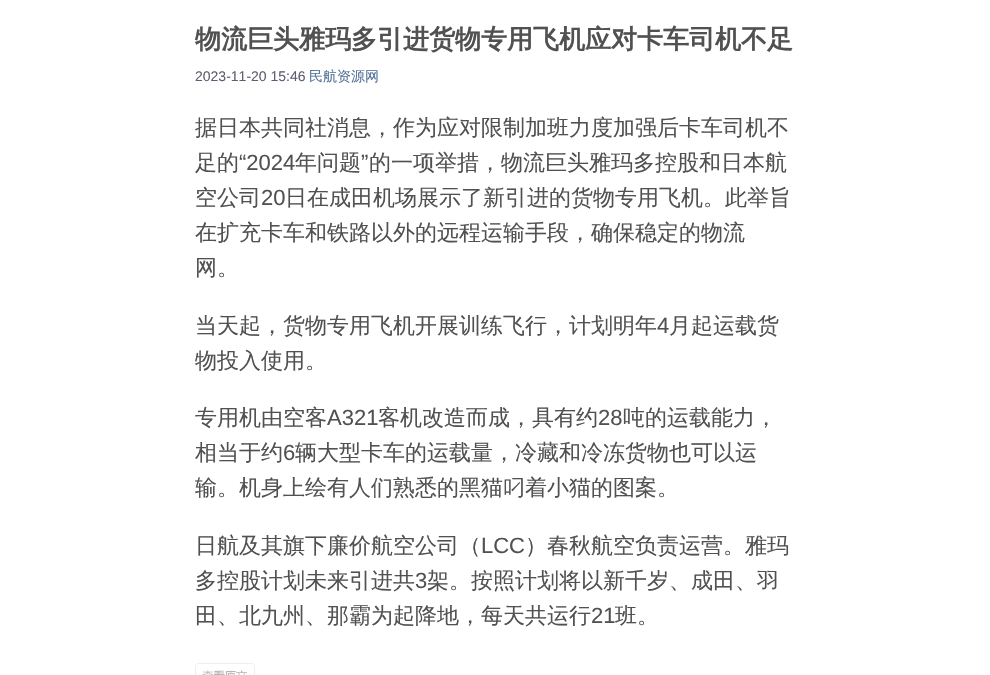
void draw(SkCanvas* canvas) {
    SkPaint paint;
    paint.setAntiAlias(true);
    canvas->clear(0xFFFFFFFF);
    SkFont font1(fontMgr->matchFamilyStyle("WenQuanYi Zen Hei", SkFontStyle::Bold()), 26);
    font1.setSubpixel(true);
    paint.setColor(0xFF515151);
    canvas->drawString("物流巨头雅玛多引进货物专用飞机应对卡车司机不足", 195, 48, font1, paint);
    SkFont font2(fontMgr->matchFamilyStyle("Liberation Sans", SkFontStyle::Normal()), 14);
    font2.setSubpixel(true);
    paint.setColor(0xFF625C72);
    canvas->drawString("2023-11-20 15:46", 195, 81, font2, paint);
    SkFont font3(fontMgr->matchFamilyStyle("WenQuanYi Zen Hei", SkFontStyle(500, SkFontStyle::kNormal_Width, SkFontStyle::kUpright_Slant)), 14);
    font3.setSubpixel(true);
    paint.setColor(0xFF537198);
    canvas->drawString("民航资源网", 309, 81, font3, paint);
    SkFont font4(fontMgr->matchFamilyStyle("WenQuanYi Zen Hei", SkFontStyle(500, SkFontStyle::kNormal_Width, SkFontStyle::kUpright_Slant)), 22);
    font4.setSubpixel(true);
    paint.setColor(0xFF515151);
    canvas->drawString("据日本共同社消息，作为应对限制加班力度加强后卡车司机不", 195, 135, font4, paint);
    canvas->drawString("足的", 195, 170, font4, paint);
    SkFont font5(fontMgr->matchFamilyStyle("Liberation Sans", SkFontStyle::Normal()), 22);
    font5.setSubpixel(true);
    canvas->drawString("“2024", 239, 170, font5, paint);
    canvas->drawString("年问题", 295, 170, font4, paint);
    canvas->drawString("”", 361, 170, font5, paint);
    canvas->drawString("的一项举措，物流巨头雅玛多控股和日本航", 369, 170, font4, paint);
    canvas->drawString("空公司", 195, 205, font4, paint);
    canvas->drawString("20", 261, 205, font5, paint);
    canvas->drawString("日在成田机场展示了新引进的货物专用飞机。此举旨", 285, 205, font4, paint);
    canvas->drawString("在扩充卡车和铁路以外的远程运输手段，确保稳定的物流", 195, 240, font4, paint);
    canvas->drawString("网。", 195, 275, font4, paint);
    canvas->drawString("当天起，货物专用飞机开展训练飞行，计划明年", 195, 333, font4, paint);
    canvas->drawString("4", 657, 333, font5, paint);
    canvas->drawString("月起运载货", 669, 333, font4, paint);
    canvas->drawString("物投入使用。", 195, 368, font4, paint);
    canvas->drawString("专用机由空客", 195, 425, font4, paint);
    canvas->drawString("A321", 327, 425, font5, paint);
    canvas->drawString("客机改造而成，具有约", 378, 425, font4, paint);
    canvas->drawString("28", 598, 425, font5, paint);
    canvas->drawString("吨的运载能力，", 623, 425, font4, paint);
    canvas->drawString("相当于约", 195, 460, font4, paint);
    canvas->drawString("6", 283, 460, font5, paint);
    canvas->drawString("辆大型卡车的运载量，冷藏和冷冻货物也可以运", 295, 460, font4, paint);
    canvas->drawString("输。机身上绘有人们熟悉的黑猫叼着小猫的图案。", 195, 495, font4, paint);
    canvas->drawString("日航及其旗下廉价航空公司（", 195, 553, font4, paint);
    canvas->drawString("LCC", 481, 553, font5, paint);
    canvas->drawString("）春秋航空负责运营。雅玛", 525, 553, font4, paint);
    canvas->drawString("多控股计划未来引进共", 195, 588, font4, paint);
    canvas->drawString("3", 415, 588, font5, paint);
    canvas->drawString("架。按照计划将以新千岁、成田、羽", 427, 588, font4, paint);
    canvas->drawString("田、北九州、那霸为起降地，每天共运行", 195, 623, font4, paint);
    canvas->drawString("21", 591, 623, font5, paint);
    canvas->drawString("班。", 615, 623, font4, paint);
    canvas->drawImageRect(SkImages::DeferredFromEncodedData(SkData::MakeFromFileName("img1.png")), SkRect::MakeXYWH(195, 663, 60, 12), SkSamplingOptions());
}
